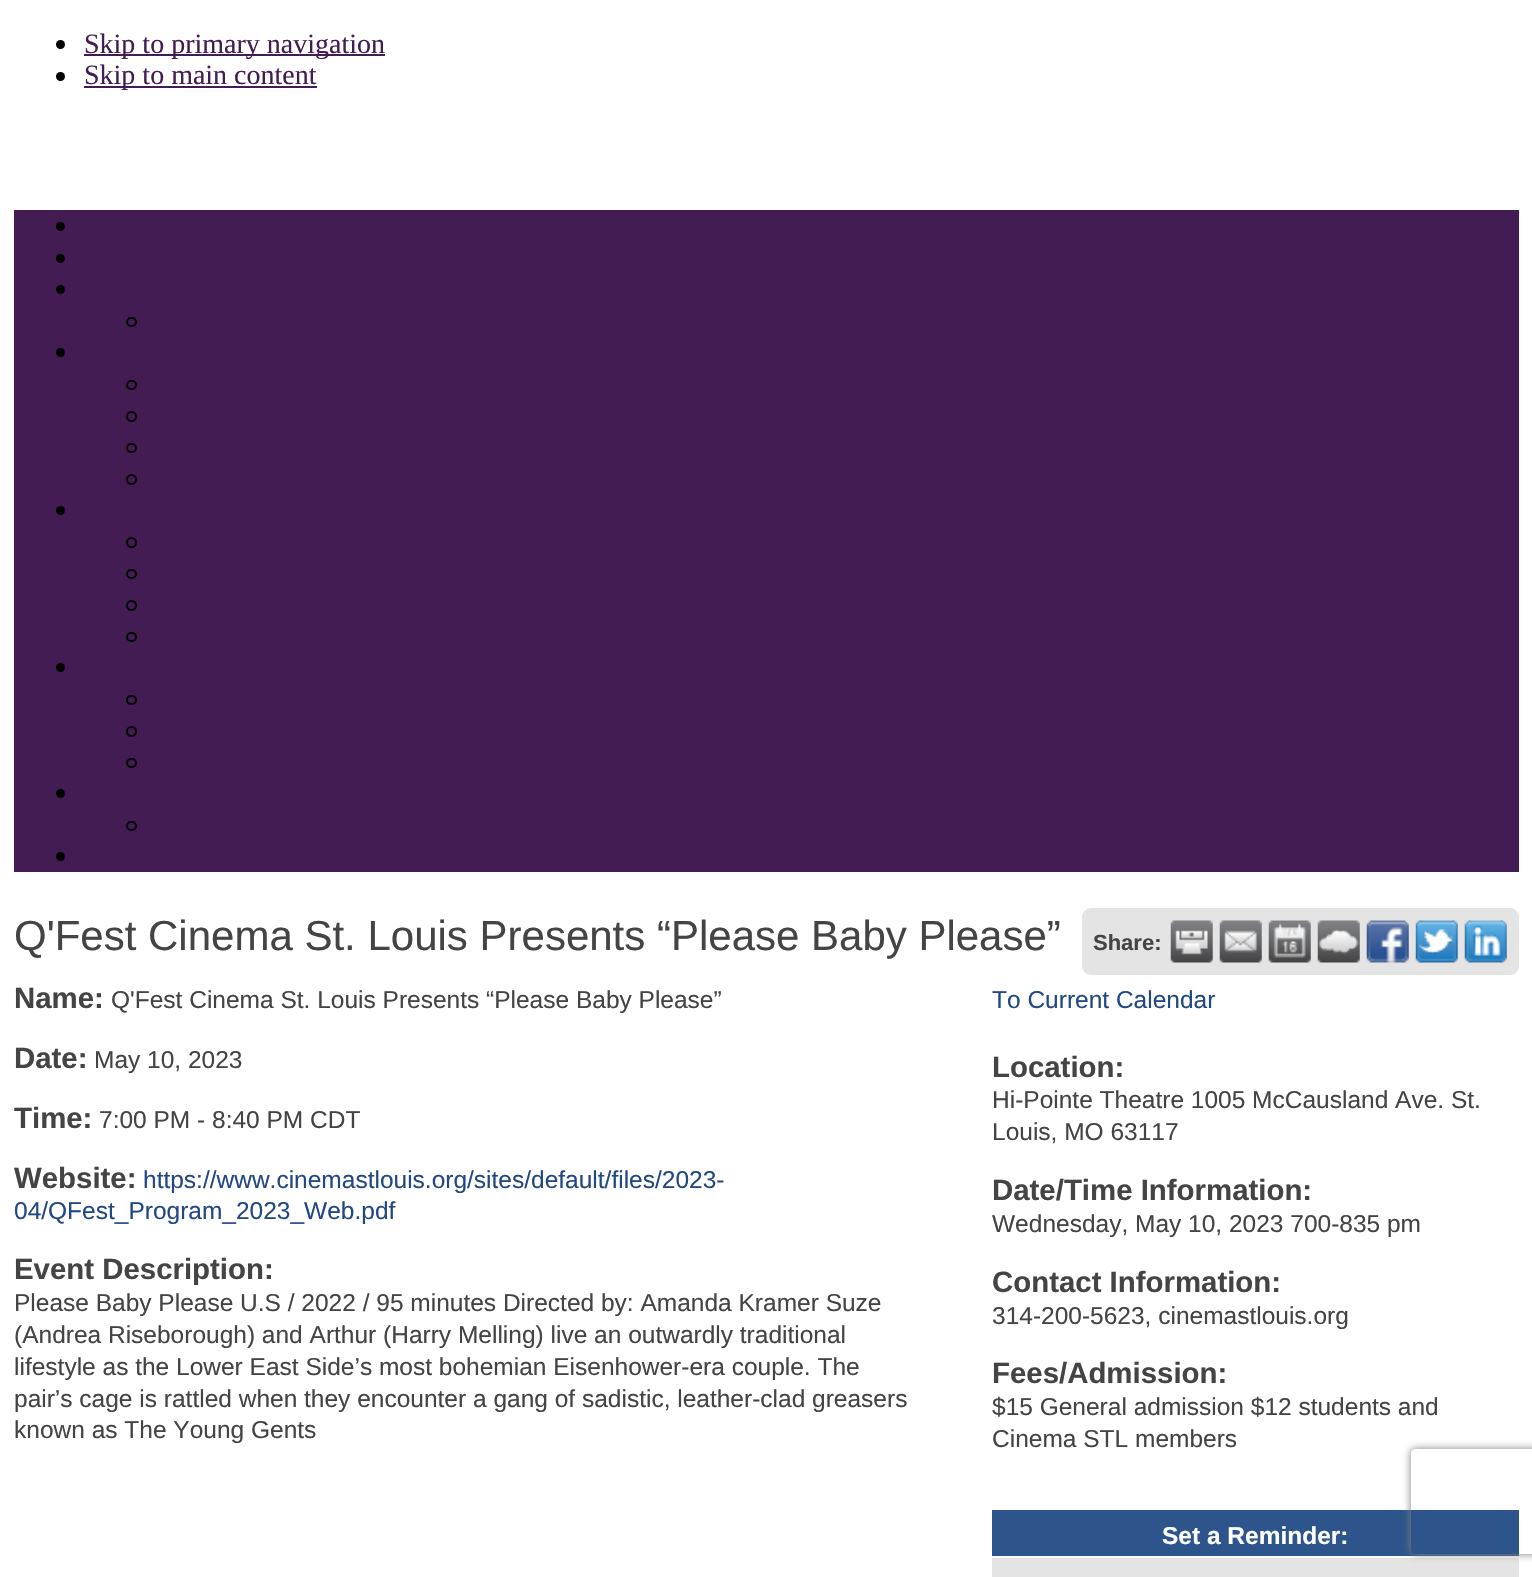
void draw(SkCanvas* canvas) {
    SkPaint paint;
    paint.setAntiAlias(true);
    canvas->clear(0xFFFFFFFF);
    paint.setColor(0xFF000000);
    canvas->drawCircle(60.5f, 44.5f, 4.5f, paint);
    paint.setColor(0xFF421C52);
    canvas->drawRect(SkRect::MakeXYWH(84, 54, 301, 2), paint);
    SkFont font1(fontMgr->matchFamilyStyle("Liberation Serif", SkFontStyle::Normal()), 28);
    font1.setSubpixel(true);
    canvas->drawString("Skip to primary navigation", 84, 53, font1, paint);
    paint.setColor(0xFF000000);
    canvas->drawCircle(60.5f, 76.5f, 4.5f, paint);
    paint.setColor(0xFF421C52);
    canvas->drawRect(SkRect::MakeXYWH(84, 86, 233, 2), paint);
    canvas->drawString("Skip to main content", 84, 84, font1, paint);
    canvas->drawRect(SkRect::MakeXYWH(14, 210, 1505, 662), paint);
    paint.setColor(0xFF000000);
    canvas->drawCircle(60.5f, 226.5f, 4.5f, paint);
    canvas->drawCircle(60.5f, 258.5f, 4.5f, paint);
    canvas->drawCircle(60.5f, 289.5f, 4.5f, paint);
    paint.setStyle(SkPaint::kStroke_Style);
    paint.setStrokeWidth(2);
    canvas->drawRoundRect(SkRect::MakeXYWH(127, 318, 9, 8), 4, 4, paint);
    paint.setStyle(SkPaint::kFill_Style);
    canvas->drawCircle(60.5f, 352.5f, 4.5f, paint);
    paint.setStyle(SkPaint::kStroke_Style);
    canvas->drawRoundRect(SkRect::MakeXYWH(127, 381, 9, 8), 4, 4, paint);
    canvas->drawCircle(131.5f, 416.5f, 4.5f, paint);
    canvas->drawRoundRect(SkRect::MakeXYWH(127, 444, 9, 8), 4, 4, paint);
    canvas->drawCircle(131.5f, 479.5f, 4.5f, paint);
    paint.setStyle(SkPaint::kFill_Style);
    canvas->drawCircle(60.5f, 510.5f, 4.5f, paint);
    paint.setStyle(SkPaint::kStroke_Style);
    canvas->drawCircle(131.5f, 542.5f, 4.5f, paint);
    canvas->drawRoundRect(SkRect::MakeXYWH(127, 570, 9, 8), 4, 4, paint);
    canvas->drawCircle(131.5f, 605.5f, 4.5f, paint);
    canvas->drawRoundRect(SkRect::MakeXYWH(127, 633, 9, 8), 4, 4, paint);
    paint.setStyle(SkPaint::kFill_Style);
    canvas->drawCircle(60.5f, 667.5f, 4.5f, paint);
    paint.setStyle(SkPaint::kStroke_Style);
    canvas->drawRoundRect(SkRect::MakeXYWH(127, 696, 9, 8), 4, 4, paint);
    canvas->drawCircle(131.5f, 731.5f, 4.5f, paint);
    canvas->drawRoundRect(SkRect::MakeXYWH(127, 759, 9, 8), 4, 4, paint);
    paint.setStyle(SkPaint::kFill_Style);
    canvas->drawCircle(60.5f, 793.5f, 4.5f, paint);
    paint.setStyle(SkPaint::kStroke_Style);
    canvas->drawRoundRect(SkRect::MakeXYWH(127, 822, 9, 8), 4, 4, paint);
    paint.setStyle(SkPaint::kFill_Style);
    canvas->drawCircle(60.5f, 856.5f, 4.5f, paint);
    SkFont font2(fontMgr->matchFamilyStyle("Liberation Sans", SkFontStyle::Normal()), 42);
    font2.setSubpixel(true);
    paint.setColor(0xFF444444);
    canvas->drawString("Q'Fest Cinema St. Louis Presents “Please Baby Please”", 14, 950, font2, paint);
    paint.setColor(0xFFE4E4E4);
    canvas->drawRoundRect(SkRect::MakeXYWH(1082, 908, 437, 67), 9, 9, paint);
    SkFont font3(fontMgr->matchFamilyStyle("Liberation Sans", SkFontStyle::Bold()), 22);
    font3.setSubpixel(true);
    paint.setColor(0xFF444444);
    canvas->drawString("Share:", 1093, 950, font3, paint);
    canvas->drawImageRect(SkImages::DeferredFromEncodedData(SkData::MakeFromFileName("img1.png")), SkRect::MakeXYWH(1170, 920, 43, 43), SkSamplingOptions());
    canvas->drawImageRect(SkImages::DeferredFromEncodedData(SkData::MakeFromFileName("img2.png")), SkRect::MakeXYWH(1219, 920, 43, 43), SkSamplingOptions());
    canvas->drawImageRect(SkImages::DeferredFromEncodedData(SkData::MakeFromFileName("img3.png")), SkRect::MakeXYWH(1268, 920, 43, 43), SkSamplingOptions());
    canvas->drawImageRect(SkImages::DeferredFromEncodedData(SkData::MakeFromFileName("img4.png")), SkRect::MakeXYWH(1317, 920, 43, 43), SkSamplingOptions());
    canvas->drawImageRect(SkImages::DeferredFromEncodedData(SkData::MakeFromFileName("img5.png")), SkRect::MakeXYWH(1366, 920, 43, 43), SkSamplingOptions());
    canvas->drawImageRect(SkImages::DeferredFromEncodedData(SkData::MakeFromFileName("img6.png")), SkRect::MakeXYWH(1415, 920, 43, 43), SkSamplingOptions());
    canvas->drawImageRect(SkImages::DeferredFromEncodedData(SkData::MakeFromFileName("img7.png")), SkRect::MakeXYWH(1464, 920, 43, 43), SkSamplingOptions());
    SkFont font4(fontMgr->matchFamilyStyle("Liberation Sans", SkFontStyle::Bold()), 29.4f);
    font4.setSubpixel(true);
    canvas->drawString("Name:", 14, 1008, font4, paint);
    SkFont font5(fontMgr->matchFamilyStyle("Liberation Sans", SkFontStyle::Normal()), 24.5f);
    font5.setSubpixel(true);
    canvas->drawString("Q'Fest Cinema St. Louis Presents “Please Baby Please”", 111, 1008, font5, paint);
    canvas->drawString("Date:", 14, 1068, font4, paint);
    canvas->drawString("May 10, 2023", 94, 1068, font5, paint);
    canvas->drawString("Time:", 14, 1128, font4, paint);
    canvas->drawString("7:00 PM - 8:40 PM CDT", 99, 1128, font5, paint);
    canvas->drawString("Website:", 14, 1188, font4, paint);
    paint.setColor(0xFF224884);
    canvas->drawString("https://www.cinemastlouis.org/sites/default/files/2023-", 143, 1188, font5, paint);
    canvas->drawString("04/QFest_Program_2023_Web.pdf", 14, 1219, font5, paint);
    paint.setColor(0xFF444444);
    canvas->drawString("Event Description:", 14, 1279, font4, paint);
    canvas->drawString("Please Baby Please U.S / 2022 / 95 minutes Directed by: Amanda Kramer Suze", 14, 1311, font5, paint);
    canvas->drawString("(Andrea Riseborough) and Arthur (Harry Melling) live an outwardly traditional", 14, 1343, font5, paint);
    canvas->drawString("lifestyle as the Lower East Side’s most bohemian Eisenhower-era couple. The", 14, 1375, font5, paint);
    canvas->drawString("pair’s cage is rattled when they encounter a gang of sadistic, leather-clad greasers", 14, 1407, font5, paint);
    canvas->drawString("known as The Young Gents", 14, 1438, font5, paint);
    paint.setColor(0xFF224884);
    canvas->drawString("To Current Calendar", 992, 1008, font5, paint);
    paint.setColor(0xFF444444);
    canvas->drawString("Location:", 992, 1077, font4, paint);
    canvas->drawString("Hi-Pointe Theatre 1005 McCausland Ave. St.", 992, 1108, font5, paint);
    canvas->drawString("Louis, MO 63117", 992, 1140, font5, paint);
    canvas->drawString("Date/Time Information:", 992, 1200, font4, paint);
    canvas->drawString("Wednesday, May 10, 2023 700-835 pm", 992, 1232, font5, paint);
    canvas->drawString("Contact Information:", 992, 1292, font4, paint);
    canvas->drawString("314-200-5623, cinemastlouis.org", 992, 1324, font5, paint);
    canvas->drawString("Fees/Admission:", 992, 1383, font4, paint);
    canvas->drawString("$15 General admission $12 students and", 992, 1415, font5, paint);
    canvas->drawString("Cinema STL members", 992, 1447, font5, paint);
    paint.setColor(0xFFE4E4E4);
    canvas->drawRect(SkRect::MakeXYWH(992, 1558, 527, 19), paint);
    paint.setColor(0xFF2D548B);
    canvas->drawRect(SkRect::MakeXYWH(992, 1510, 527, 46), paint);
    SkFont font6(fontMgr->matchFamilyStyle("Liberation Sans", SkFontStyle::Bold()), 24.5f);
    font6.setSubpixel(true);
    paint.setColor(0xFFFFFFFF);
    canvas->drawString("Set a Reminder:", 1162, 1544, font6, paint);
    canvas->save();
    canvas->clipPath(SkPathBuilder(SkPathFillType::kEvenOdd).moveTo(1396, 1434).lineTo(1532, 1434).lineTo(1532, 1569).lineTo(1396, 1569).close().moveTo(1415, 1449).lineTo(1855, 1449).cubicTo(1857, 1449, 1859, 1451, 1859, 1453).lineTo(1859, 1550).cubicTo(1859, 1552, 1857, 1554, 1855, 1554).lineTo(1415, 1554).cubicTo(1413, 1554, 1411, 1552, 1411, 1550).lineTo(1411, 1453).cubicTo(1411, 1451, 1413, 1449, 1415, 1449).close().detach(), true);
    paint.setColor(0xFF808080);
    paint.setMaskFilter(SkMaskFilter::MakeBlur(kNormal_SkBlurStyle, 4.5f));
    canvas->drawRoundRect(SkRect::MakeXYWH(1411, 1449, 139, 105), 4, 4, paint);
    paint.setMaskFilter(nullptr);
    canvas->restore();
}
